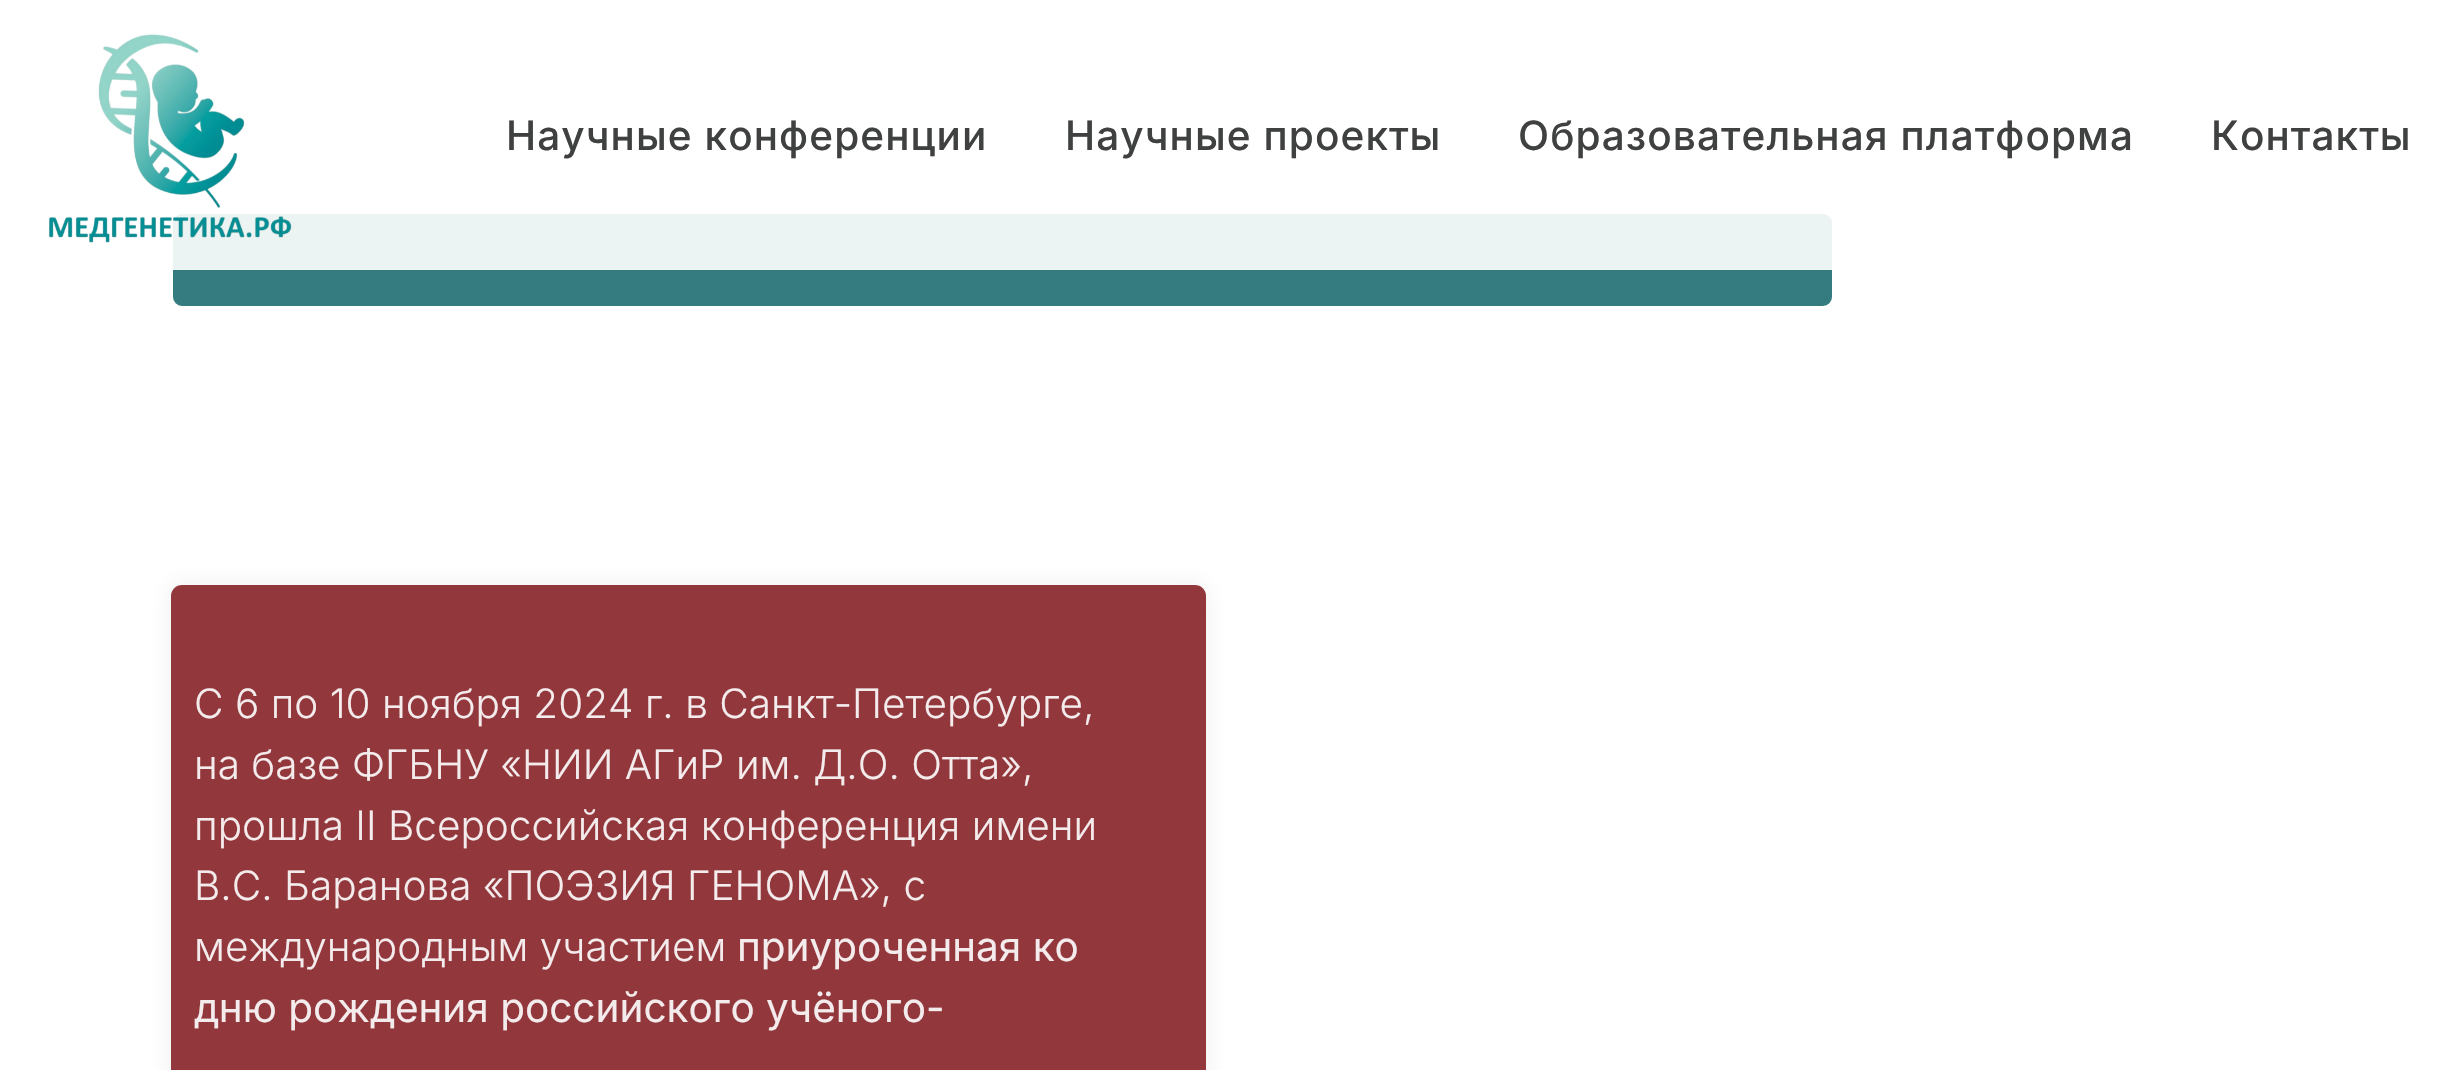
void draw(SkCanvas* canvas) {
    SkPaint paint;
    paint.setAntiAlias(true);
    auto spacedText = [&](const char* s, float x, float y, const SkFont& font, const SkPaint& ink, float letter, float word) {
        std::vector<SkGlyphID> glyphs(font.countText(s, strlen(s), SkTextEncoding::kUTF8));
        std::vector<float> xs(glyphs.size());
        font.textToGlyphs(s, strlen(s), SkTextEncoding::kUTF8, glyphs);
        font.getXPos(glyphs, xs, x);
        float extra = 0;
        for (size_t i = 0; i < glyphs.size(); i++) {
            xs[i] += extra;
            extra += letter + word * (glyphs[i] == font.unicharToGlyph(' '));
        }
        canvas->drawTextBlob(SkTextBlob::MakeFromPosHGlyphs(glyphs, xs, y, font), 0, 0, ink);
    };
    canvas->clear(0xFFFFFFFF);
    paint.setColor(0xFF357C81);
    canvas->drawRoundRect(SkRect::MakeXYWH(172, 213, 1661, 94), 10, 10, paint);
    paint.setStyle(SkPaint::kStroke_Style);
    paint.setStrokeWidth(2);
    paint.setColor(0xFFFFFFFF);
    canvas->drawRoundRect(SkRect::MakeXYWH(172, 213, 1661, 94), 10, 10, paint);
    paint.setStyle(SkPaint::kFill_Style);
    paint.setColor(0xE6FFFFFF);
    canvas->drawRect(SkRect::MakeXYWH(171, 212, 1663, 58), paint);
    canvas->drawImageRect(SkImages::DeferredFromEncodedData(SkData::MakeFromFileName("img1.png")), SkRect::MakeXYWH(48, 34, 244, 209), SkSamplingOptions());
    SkFont font1(fontMgr->matchFamilyStyle("Inter", SkFontStyle(500, SkFontStyle::kNormal_Width, SkFontStyle::kUpright_Slant)), 40.5f);
    font1.setSubpixel(true);
    paint.setColor(0xFF3F4040);
    spacedText("Научные конференции", 506, 150, font1, paint, 1.1f, 0);
    spacedText("Научные проекты", 1065, 150, font1, paint, 1.1f, 0);
    spacedText("Образовательная платформа", 1518, 150, font1, paint, 1.1f, 0);
    spacedText("Контакты", 2211, 150, font1, paint, 1.1f, 0);
    paint.setColor(0x1A595858);
    paint.setMaskFilter(SkMaskFilter::MakeBlur(kNormal_SkBlurStyle, 11));
    canvas->drawRoundRect(SkRect::MakeXYWH(171, 585, 1035, 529), 11, 11, paint);
    paint.setMaskFilter(nullptr);
    paint.setColor(0xFF92383C);
    canvas->drawRoundRect(SkRect::MakeXYWH(171, 585, 1035, 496), 11, 11, paint);
    SkFont font2(fontMgr->matchFamilyStyle("Inter", SkFontStyle(300, SkFontStyle::kNormal_Width, SkFontStyle::kUpright_Slant)), 40.5f);
    font2.setSubpixel(true);
    paint.setColor(0xFFF4EBEC);
    canvas->drawString("С 6 по 10 ноября 2024 г. в Санкт-Петербурге,", 194, 718, font2, paint);
    canvas->drawString("на базе ФГБНУ «НИИ АГиР им. Д.О. Отта»,", 194, 779, font2, paint);
    canvas->drawString("прошла II Всероссийская конференция имени", 194, 840, font2, paint);
    canvas->drawString("В.С. Баранова «ПОЭЗИЯ ГЕНОМА», с", 194, 900, font2, paint);
    canvas->drawString("международным участием", 194, 961, font2, paint);
    SkFont font3(fontMgr->matchFamilyStyle("Inter", SkFontStyle::Normal()), 40.5f);
    font3.setSubpixel(true);
    canvas->drawString("приуроченная ко", 737, 961, font3, paint);
    canvas->drawString("дню рождения российского учёного-", 194, 1022, font3, paint);
}
